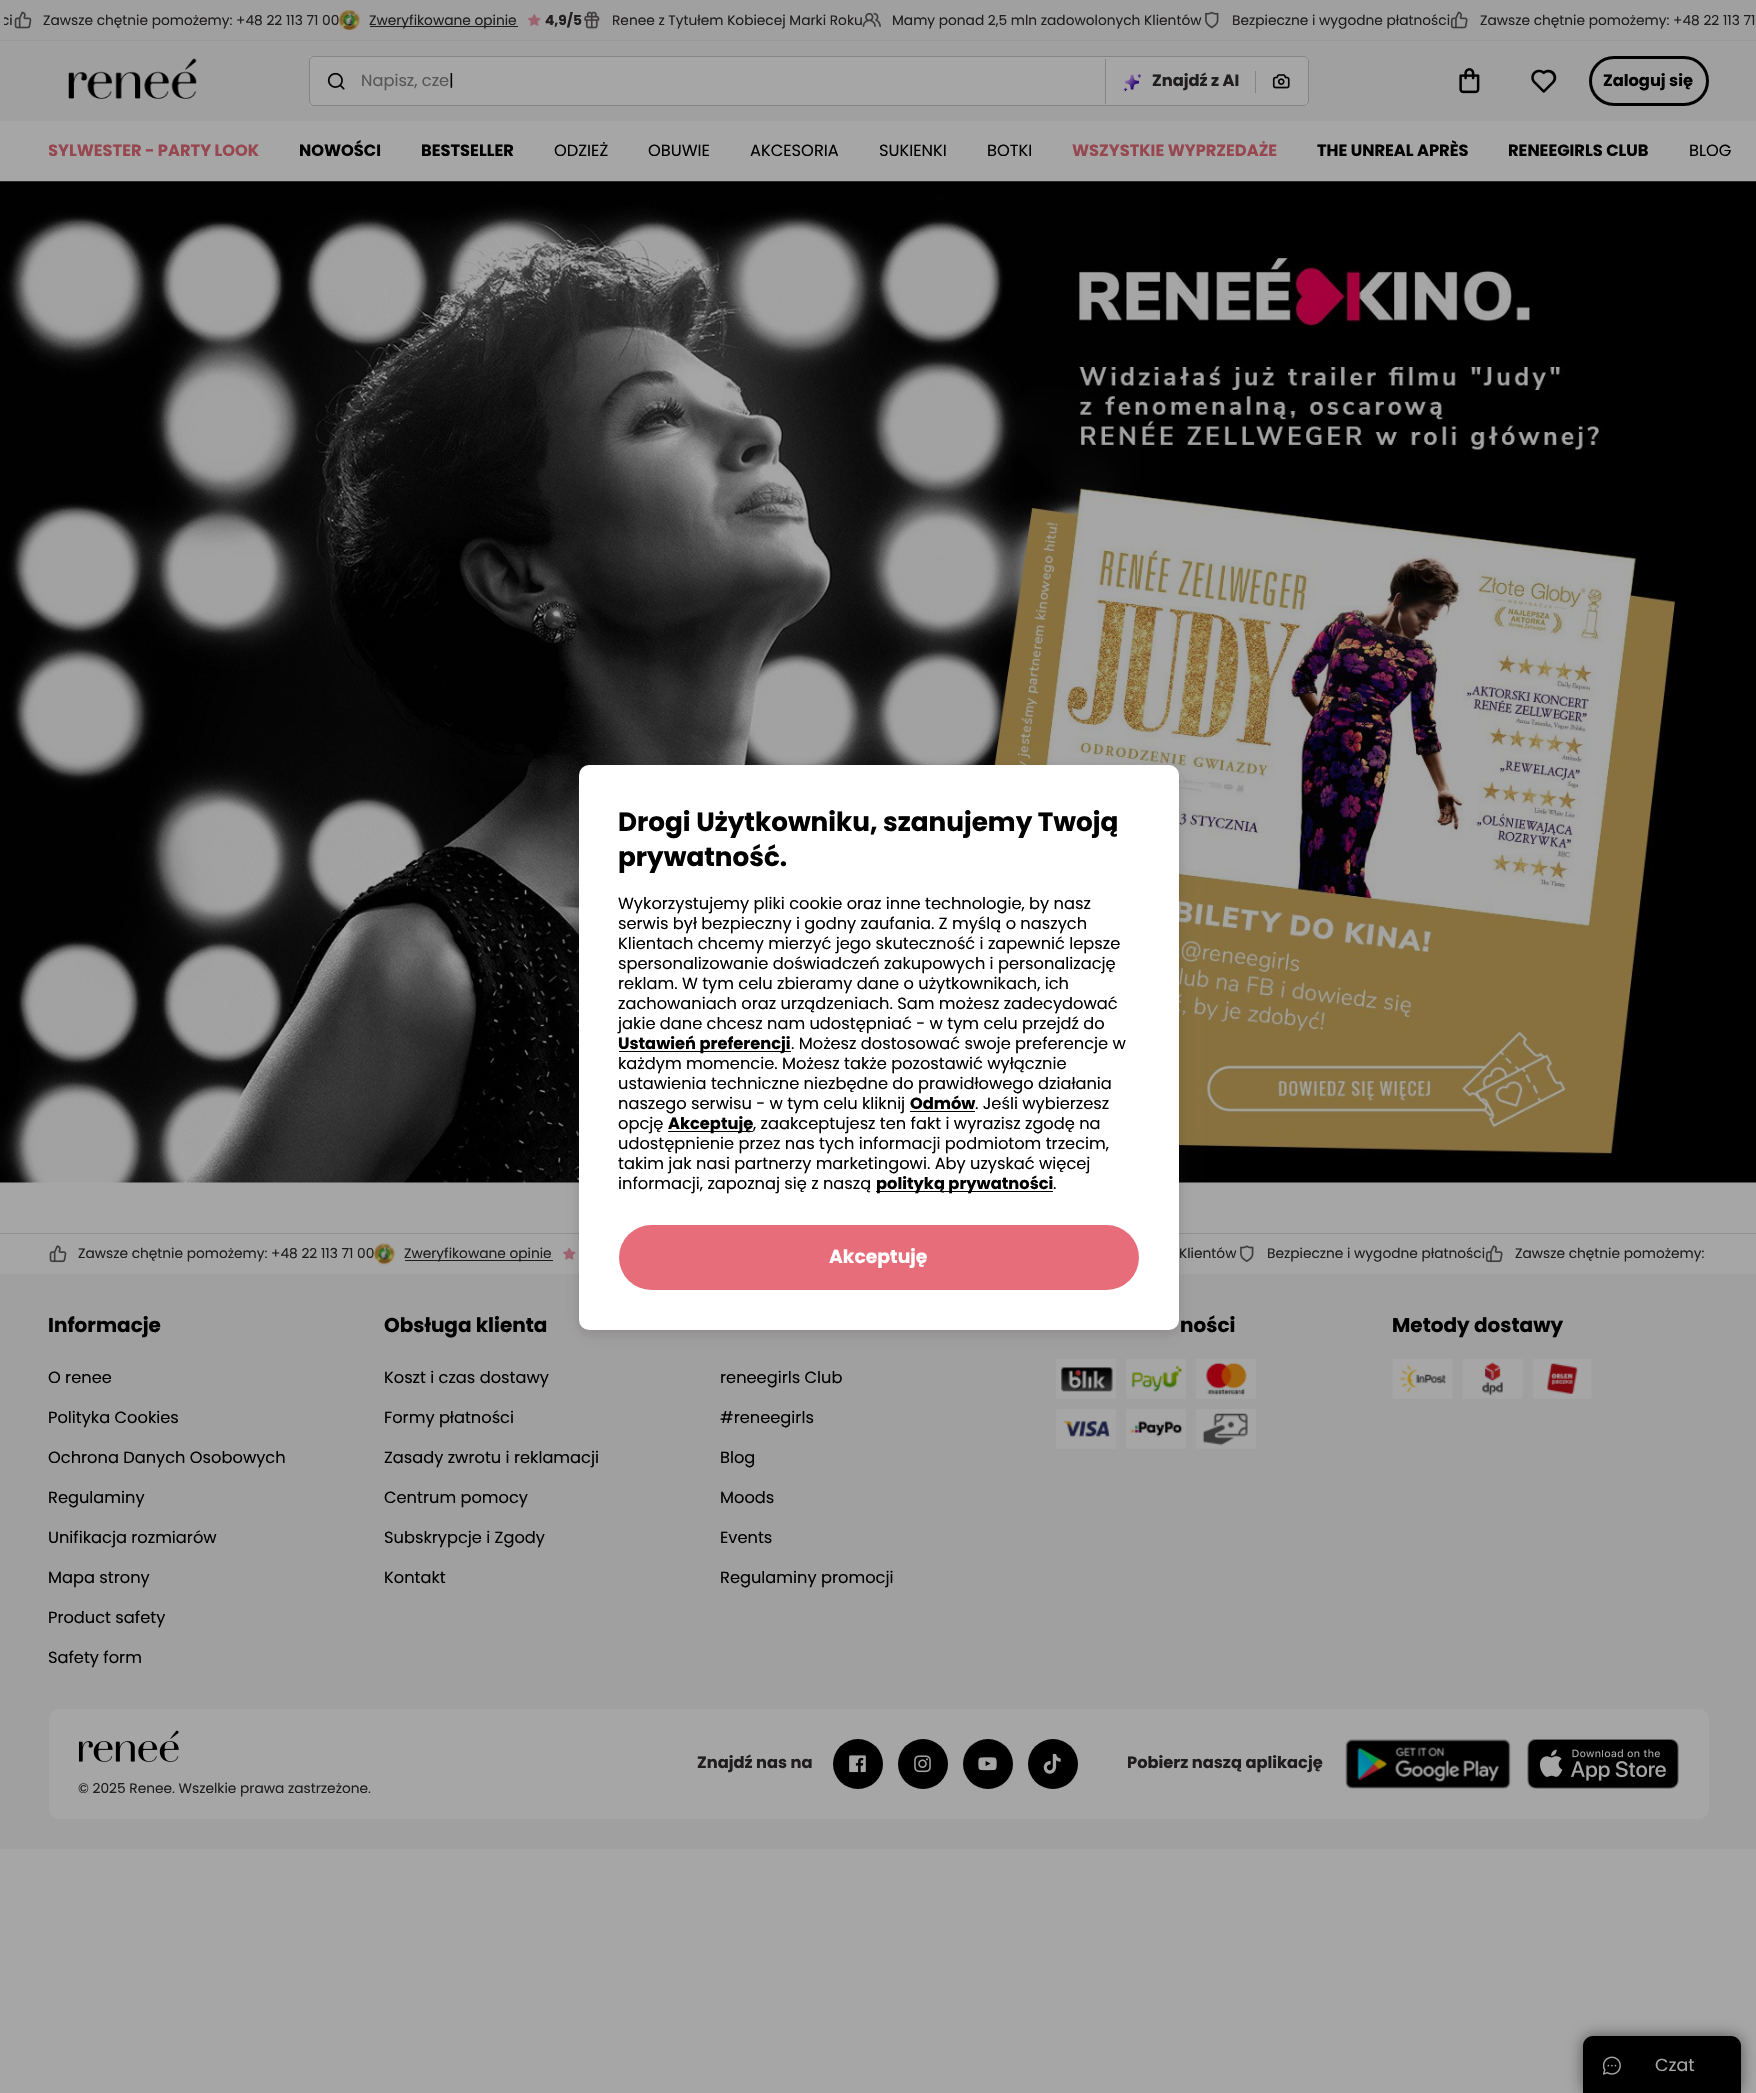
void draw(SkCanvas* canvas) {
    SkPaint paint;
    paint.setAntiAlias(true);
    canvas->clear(0xFFA6A6A6);
    paint.setColor(0xFFA1A0A0);
    canvas->drawRect(SkRect::MakeXYWH(0, 0, 1756, 40), paint);
    canvas->save();
    canvas->clipRect(SkRect::MakeXYWH(4, 0, 1750, 40));
    SkFont font1(fontMgr->matchFamilyStyle("Poppins", SkFontStyle::Normal()), 13.75f);
    font1.setSubpixel(true);
    paint.setColor(0xFF1F1D1D);
    canvas->drawString("ci", 1, 25, font1, paint);
    canvas->restore();
    canvas->drawImageRect(SkImages::DeferredFromEncodedData(SkData::MakeFromFileName("img1.png")), SkRect::MakeXYWH(14, 11, 18, 18), SkSamplingOptions());
    canvas->drawString("Zawsze chętnie pomożemy: +48 22 113 71 00", 43, 25, font1, paint);
    canvas->drawImageRect(SkImages::DeferredFromEncodedData(SkData::MakeFromFileName("img2.png")), SkRect::MakeXYWH(338, 10, 22, 20), SkSamplingOptions());
    canvas->drawRect(SkRect::MakeXYWH(370, 26, 148, 1), paint);
    canvas->drawString("Zweryfikowane opinie", 369, 25, font1, paint);
    canvas->drawImageRect(SkImages::DeferredFromEncodedData(SkData::MakeFromFileName("img3.png")), SkRect::MakeXYWH(528, 14, 13, 12), SkSamplingOptions());
    SkFont font2(fontMgr->matchFamilyStyle("Poppins", SkFontStyle::Bold()), 13.75f);
    font2.setSubpixel(true);
    canvas->drawString("4,9/5", 545, 25, font2, paint);
    canvas->drawImageRect(SkImages::DeferredFromEncodedData(SkData::MakeFromFileName("img4.png")), SkRect::MakeXYWH(584, 11, 16, 18), SkSamplingOptions());
    canvas->drawString("Renee z Tytułem Kobiecej Marki Roku", 612, 25, font1, paint);
    canvas->drawImageRect(SkImages::DeferredFromEncodedData(SkData::MakeFromFileName("img5.png")), SkRect::MakeXYWH(862, 12, 19, 15), SkSamplingOptions());
    canvas->drawString("Mamy ponad 2,5 mln zadowolonych Klientów", 892, 25, font1, paint);
    canvas->drawImageRect(SkImages::DeferredFromEncodedData(SkData::MakeFromFileName("img6.png")), SkRect::MakeXYWH(1205, 11, 14, 18), SkSamplingOptions());
    canvas->drawString("Bezpieczne i wygodne płatności", 1232, 25, font1, paint);
    canvas->drawImageRect(SkImages::DeferredFromEncodedData(SkData::MakeFromFileName("img7.png")), SkRect::MakeXYWH(1450, 11, 18, 18), SkSamplingOptions());
    canvas->drawString("Zawsze chętnie pomożemy: +48 22 113 71", 1480, 25, font1, paint);
    paint.setColor(0xFF9A9999);
    canvas->drawRect(SkRect::MakeXYWH(0, 40, 1756, 1), paint);
    paint.setColor(0xFFA1A0A0);
    canvas->drawRect(SkRect::MakeXYWH(0, 41, 1756, 80), paint);
    canvas->drawImageRect(SkImages::DeferredFromEncodedData(SkData::MakeFromFileName("img8.png")), SkRect::MakeXYWH(68, 58, 129, 41), SkSamplingOptions());
    paint.setColor(0xFFA6A6A6);
    canvas->drawRect(SkRect::MakeXYWH(309, 56, 1000, 50), paint);
    paint.setStyle(SkPaint::kStroke_Style);
    paint.setStrokeWidth(1);
    paint.setColor(0xFF858383);
    canvas->drawRoundRect(SkRect::MakeXYWH(309.5f, 56.5f, 999, 49), 4.5f, 4.5f, paint);
    canvas->drawImageRect(SkImages::DeferredFromEncodedData(SkData::MakeFromFileName("img9.png")), SkRect::MakeXYWH(327, 72, 18, 18), SkSamplingOptions());
    SkFont font3(fontMgr->matchFamilyStyle("Poppins", SkFontStyle::Normal()), 16.25f);
    font3.setSubpixel(true);
    paint.setStyle(SkPaint::kFill_Style);
    paint.setColor(0xFF575555);
    canvas->drawString("Napisz, cze", 361, 86, font3, paint);
    paint.setColor(0xFF000000);
    canvas->drawString("|", 449, 86, font3, paint);
    paint.setColor(0xFF858383);
    canvas->drawRect(SkRect::MakeXYWH(1105, 59, 1, 45), paint);
    canvas->drawRect(SkRect::MakeXYWH(1255, 71, 1, 22), paint);
    canvas->drawImageRect(SkImages::DeferredFromEncodedData(SkData::MakeFromFileName("img10.png")), SkRect::MakeXYWH(1123, 73, 18, 19), SkSamplingOptions());
    SkFont font4(fontMgr->matchFamilyStyle("Poppins", SkFontStyle::Bold()), 16.25f);
    font4.setSubpixel(true);
    paint.setColor(0xFF1F1D1D);
    canvas->drawString("Znajdź z AI", 1152, 86, font4, paint);
    canvas->drawImageRect(SkImages::DeferredFromEncodedData(SkData::MakeFromFileName("img11.png")), SkRect::MakeXYWH(1272, 74, 18, 15), SkSamplingOptions());
    canvas->drawImageRect(SkImages::DeferredFromEncodedData(SkData::MakeFromFileName("img12.png")), SkRect::MakeXYWH(1459, 68, 21, 26), SkSamplingOptions());
    canvas->drawImageRect(SkImages::DeferredFromEncodedData(SkData::MakeFromFileName("img13.png")), SkRect::MakeXYWH(1531, 69, 26, 24), SkSamplingOptions());
    paint.setStyle(SkPaint::kStroke_Style);
    paint.setStrokeWidth(3);
    paint.setColor(0xFF000000);
    canvas->drawRoundRect(SkRect::MakeXYWH(1590.5f, 57.5f, 117, 47), 23.5f, 23.5f, paint);
    paint.setStyle(SkPaint::kFill_Style);
    canvas->drawString("Zaloguj się", 1603, 86, font4, paint);
    canvas->save();
    canvas->clipRect(SkRect::MakeXYWH(49, 121, 1702, 60));
    paint.setColor(0xFF964750);
    canvas->drawString("SYLWESTER - PARTY LOOK", 48, 156, font4, paint);
    canvas->restore();
    paint.setColor(0xFF000000);
    canvas->drawString("NOWOŚCI", 299, 156, font4, paint);
    canvas->drawString("BESTSELLER", 421, 156, font4, paint);
    canvas->drawString("ODZIEŻ", 554, 156, font3, paint);
    canvas->drawString("OBUWIE", 648, 156, font3, paint);
    canvas->drawString("AKCESORIA", 750, 156, font3, paint);
    canvas->drawString("SUKIENKI", 879, 156, font3, paint);
    canvas->drawString("BOTKI", 987, 156, font3, paint);
    paint.setColor(0xFF964750);
    canvas->drawString("WSZYSTKIE WYPRZEDAŻE", 1072, 156, font4, paint);
    paint.setColor(0xFF000000);
    canvas->drawString("THE UNREAL APRÈS", 1317, 156, font4, paint);
    canvas->drawString("RENEEGIRLS CLUB", 1508, 156, font4, paint);
    canvas->drawString("BLOG", 1689, 156, font3, paint);
    canvas->drawImageRect(SkImages::DeferredFromEncodedData(SkData::MakeFromFileName("img14.png")), SkRect::MakeXYWH(0, 181, 1756, 1002), SkSamplingOptions());
    paint.setColor(0xFFA1A0A0);
    canvas->drawRect(SkRect::MakeXYWH(0, 1274, 1756, 575), paint);
    paint.setColor(0xFF918F8F);
    canvas->drawRect(SkRect::MakeXYWH(0, 1233, 1756, 1), paint);
    paint.setColor(0xFF1F1D1D);
    canvas->drawRect(SkRect::MakeXYWH(405, 1260, 148, 1), paint);
    canvas->drawImageRect(SkImages::DeferredFromEncodedData(SkData::MakeFromFileName("img17.png")), SkRect::MakeXYWH(563, 1247, 13, 13), SkSamplingOptions());
    canvas->drawImageRect(SkImages::DeferredFromEncodedData(SkData::MakeFromFileName("img20.png")), SkRect::MakeXYWH(1056, 1359, 60, 40), SkSamplingOptions());
    canvas->drawImageRect(SkImages::DeferredFromEncodedData(SkData::MakeFromFileName("img21.png")), SkRect::MakeXYWH(1126, 1359, 60, 40), SkSamplingOptions());
    canvas->drawImageRect(SkImages::DeferredFromEncodedData(SkData::MakeFromFileName("img22.png")), SkRect::MakeXYWH(1196, 1359, 60, 40), SkSamplingOptions());
    paint.setColor(0x1A2F2C2C);
    paint.setMaskFilter(SkMaskFilter::MakeBlur(kNormal_SkBlurStyle, 10));
    canvas->drawRoundRect(SkRect::MakeXYWH(579, 770, 600, 565), 10, 10, paint);
    paint.setMaskFilter(nullptr);
    paint.setMaskFilter(SkMaskFilter::MakeBlur(kNormal_SkBlurStyle, 5));
    canvas->drawRoundRect(SkRect::MakeXYWH(579, 768, 600, 565), 10, 10, paint);
    paint.setMaskFilter(nullptr);
    paint.setColor(0xFFFFFFFF);
    canvas->drawRoundRect(SkRect::MakeXYWH(579, 765, 600, 565), 10, 10, paint);
    SkFont font5(fontMgr->matchFamilyStyle("Poppins", SkFontStyle::Bold()), 26.25f);
    font5.setSubpixel(true);
    paint.setColor(0xFF000000);
    canvas->drawString("Drogi Użytkowniku, szanujemy Twoją", 618, 831, font5, paint);
    canvas->drawString("prywatność.", 618, 866, font5, paint);
    canvas->drawString("Wykorzystujemy pliki cookie oraz inne technologie, by nasz", 618, 909, font3, paint);
    canvas->drawString("serwis był bezpieczny i godny zaufania. Z myślą o naszych", 618, 929, font3, paint);
    canvas->drawString("Klientach chcemy mierzyć jego skuteczność i zapewnić lepsze", 618, 949, font3, paint);
    canvas->drawString("spersonalizowanie doświadczeń zakupowych i personalizację", 618, 969, font3, paint);
    canvas->drawString("reklam. W tym celu zbieramy dane o użytkownikach, ich", 618, 989, font3, paint);
    canvas->drawString("zachowaniach oraz urządzeniach. Sam możesz zadecydować", 618, 1009, font3, paint);
    canvas->drawString("jakie dane chcesz nam udostępniać - w tym celu przejdź do", 618, 1029, font3, paint);
    canvas->drawRect(SkRect::MakeXYWH(619, 1051, 172, 1), paint);
    canvas->drawString("Ustawień preferencji", 618, 1049, font4, paint);
    canvas->drawString(". Możesz dostosować swoje preferencje w", 791, 1049, font3, paint);
    canvas->drawString("każdym momencie. Możesz także pozostawić wyłącznie", 618, 1069, font3, paint);
    canvas->drawString("ustawienia techniczne niezbędne do prawidłowego działania", 618, 1089, font3, paint);
    canvas->drawString("naszego serwisu - w tym celu kliknij", 618, 1109, font3, paint);
    canvas->drawString("Odmów", 910, 1109, font4, paint);
    canvas->drawRect(SkRect::MakeXYWH(910, 1111, 65, 1), paint);
    canvas->drawString(". Jeśli wybierzesz", 975, 1109, font3, paint);
    canvas->drawString("opcję", 618, 1129, font3, paint);
    canvas->drawRect(SkRect::MakeXYWH(668, 1131, 85, 1), paint);
    canvas->drawString("Akceptuję", 668, 1129, font4, paint);
    canvas->drawString(", zaakceptujesz ten fakt i wyrazisz zgodę na", 753, 1129, font3, paint);
    canvas->drawString("udostępnienie przez nas tych informacji podmiotom trzecim,", 618, 1149, font3, paint);
    canvas->drawString("takim jak nasi partnerzy marketingowi. Aby uzyskać więcej", 618, 1169, font3, paint);
    canvas->drawString("informacji, zapoznaj się z naszą", 618, 1189, font3, paint);
    canvas->drawRect(SkRect::MakeXYWH(876, 1191, 177, 1), paint);
    canvas->drawString("polityką prywatności", 876, 1189, font4, paint);
    canvas->drawString(".", 1053, 1189, font3, paint);
    paint.setColor(0xFFE76D7B);
    canvas->drawRoundRect(SkRect::MakeXYWH(619, 1225, 520, 65), 32.5f, 32.5f, paint);
    SkFont font6(fontMgr->matchFamilyStyle("Poppins", SkFontStyle::Bold()), 18.75f);
    font6.setSubpixel(true);
    paint.setColor(0xFFFFFFFF);
    canvas->drawString("Akceptuję", 829, 1263, font6, paint);
    canvas->drawImageRect(SkImages::DeferredFromEncodedData(SkData::MakeFromFileName("img15.png")), SkRect::MakeXYWH(49, 1245, 18, 18), SkSamplingOptions());
    paint.setColor(0xFF1F1D1D);
    canvas->drawString("Zawsze chętnie pomożemy: +48 22 113 71 00", 78, 1258, font1, paint);
    canvas->drawImageRect(SkImages::DeferredFromEncodedData(SkData::MakeFromFileName("img16.png")), SkRect::MakeXYWH(373, 1243, 22, 22), SkSamplingOptions());
    canvas->drawString("Zweryfikowane opinie", 404, 1258, font1, paint);
    canvas->drawString("Klientów", 1179, 1258, font1, paint);
    canvas->drawImageRect(SkImages::DeferredFromEncodedData(SkData::MakeFromFileName("img18.png")), SkRect::MakeXYWH(1240, 1245, 14, 17), SkSamplingOptions());
    canvas->drawString("Bezpieczne i wygodne płatności", 1267, 1258, font1, paint);
    canvas->drawImageRect(SkImages::DeferredFromEncodedData(SkData::MakeFromFileName("img19.png")), SkRect::MakeXYWH(1485, 1245, 18, 18), SkSamplingOptions());
    canvas->drawString("Zawsze chętnie pomożemy:", 1515, 1258, font1, paint);
    SkFont font7(fontMgr->matchFamilyStyle("Poppins", SkFontStyle::Bold()), 20);
    font7.setSubpixel(true);
    paint.setColor(0xFF000000);
    canvas->drawString("Informacje", 48, 1332, font7, paint);
    canvas->drawString("O renee", 48, 1383, font3, paint);
    canvas->drawString("Polityka Cookies", 48, 1423, font3, paint);
    canvas->drawString("Ochrona Danych Osobowych", 48, 1463, font3, paint);
    canvas->drawString("Regulaminy", 48, 1503, font3, paint);
    canvas->drawString("Unifikacja rozmiarów", 48, 1543, font3, paint);
    canvas->drawString("Mapa strony", 48, 1583, font3, paint);
    canvas->drawString("Product safety", 48, 1623, font3, paint);
    canvas->drawString("Safety form", 48, 1663, font3, paint);
    canvas->drawString("Obsługa klienta", 384, 1332, font7, paint);
    canvas->drawString("Koszt i czas dostawy", 384, 1383, font3, paint);
    canvas->drawString("Formy płatności", 384, 1423, font3, paint);
    canvas->drawString("Zasady zwrotu i reklamacji", 384, 1463, font3, paint);
    canvas->drawString("Centrum pomocy", 384, 1503, font3, paint);
    canvas->drawString("Subskrypcje i Zgody", 384, 1543, font3, paint);
    canvas->drawString("Kontakt", 384, 1583, font3, paint);
    canvas->drawString("ności", 1180, 1332, font7, paint);
    canvas->drawImageRect(SkImages::DeferredFromEncodedData(SkData::MakeFromFileName("img23.png")), SkRect::MakeXYWH(1056, 1409, 60, 40), SkSamplingOptions());
    canvas->drawImageRect(SkImages::DeferredFromEncodedData(SkData::MakeFromFileName("img24.png")), SkRect::MakeXYWH(1126, 1409, 60, 40), SkSamplingOptions());
    canvas->drawImageRect(SkImages::DeferredFromEncodedData(SkData::MakeFromFileName("img25.png")), SkRect::MakeXYWH(1196, 1409, 60, 40), SkSamplingOptions());
    canvas->drawString("Metody dostawy", 1392, 1332, font7, paint);
    canvas->drawImageRect(SkImages::DeferredFromEncodedData(SkData::MakeFromFileName("img26.png")), SkRect::MakeXYWH(1392, 1359, 61, 40), SkSamplingOptions());
    canvas->drawImageRect(SkImages::DeferredFromEncodedData(SkData::MakeFromFileName("img27.png")), SkRect::MakeXYWH(1462, 1359, 61, 40), SkSamplingOptions());
    canvas->drawImageRect(SkImages::DeferredFromEncodedData(SkData::MakeFromFileName("img28.png")), SkRect::MakeXYWH(1533, 1359, 59, 40), SkSamplingOptions());
    canvas->drawString("reneegirls Club", 720, 1383, font3, paint);
    canvas->drawString("#reneegirls", 720, 1423, font3, paint);
    canvas->drawString("Blog", 720, 1463, font3, paint);
    canvas->drawString("Moods", 720, 1503, font3, paint);
    canvas->drawString("Events", 720, 1543, font3, paint);
    canvas->drawString("Regulaminy promocji", 720, 1583, font3, paint);
    paint.setColor(0xFFA6A6A6);
    canvas->drawRoundRect(SkRect::MakeXYWH(49, 1709, 1660, 110), 10, 10, paint);
    paint.setColor(0xFF1F1D1D);
    canvas->drawString("Znajdź nas na", 697, 1768, font4, paint);
    paint.setColor(0xFF000000);
    canvas->drawCircle(858, 1764, 25, paint);
    canvas->drawImageRect(SkImages::DeferredFromEncodedData(SkData::MakeFromFileName("img29.png")), SkRect::MakeXYWH(849, 1755, 17, 18), SkSamplingOptions());
    canvas->drawCircle(923, 1764, 25, paint);
    canvas->drawImageRect(SkImages::DeferredFromEncodedData(SkData::MakeFromFileName("img30.png")), SkRect::MakeXYWH(914, 1755, 17, 18), SkSamplingOptions());
    canvas->drawCircle(988, 1764, 25, paint);
    canvas->drawImageRect(SkImages::DeferredFromEncodedData(SkData::MakeFromFileName("img31.png")), SkRect::MakeXYWH(978, 1757, 19, 14), SkSamplingOptions());
    canvas->drawCircle(1053, 1764, 25, paint);
    canvas->drawImageRect(SkImages::DeferredFromEncodedData(SkData::MakeFromFileName("img32.png")), SkRect::MakeXYWH(1043, 1754, 18, 20), SkSamplingOptions());
    paint.setColor(0xFF1F1D1D);
    canvas->drawString("Pobierz naszą aplikację", 1127, 1768, font4, paint);
    canvas->drawImageRect(SkImages::DeferredFromEncodedData(SkData::MakeFromFileName("img33.png")), SkRect::MakeXYWH(1345, 1739, 166, 50), SkSamplingOptions());
    canvas->drawImageRect(SkImages::DeferredFromEncodedData(SkData::MakeFromFileName("img34.png")), SkRect::MakeXYWH(1527, 1739, 152, 50), SkSamplingOptions());
    canvas->drawImageRect(SkImages::DeferredFromEncodedData(SkData::MakeFromFileName("img35.png")), SkRect::MakeXYWH(79, 1730, 100, 32), SkSamplingOptions());
    canvas->drawString("© 2025 Renee. Wszelkie prawa zastrzeżone.", 78, 1793, font1, paint);
    paint.setColor(0x80000000);
    paint.setMaskFilter(SkMaskFilter::MakeBlur(kNormal_SkBlurStyle, 7.5f));
    canvas->drawRoundRect(SkRect::MakeXYWH(1583, 2036, 158, 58), 10, 10, paint);
    paint.setMaskFilter(nullptr);
    paint.setColor(0xFF000000);
    canvas->drawPath(SkPathBuilder().moveTo(1593, 2036).lineTo(1731, 2036).cubicTo(1736.5f, 2036, 1741, 2040.5f, 1741, 2046).lineTo(1741, 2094).lineTo(1583, 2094).lineTo(1583, 2046).cubicTo(1583, 2040.5f, 1587.5f, 2036, 1593, 2036).close().detach(), paint);
    canvas->drawImageRect(SkImages::DeferredFromEncodedData(SkData::MakeFromFileName("img36.png")), SkRect::MakeXYWH(1603, 2056, 18, 19), SkSamplingOptions());
    SkFont font8(fontMgr->matchFamilyStyle("Poppins", SkFontStyle::Normal()), 17.5f);
    font8.setSubpixel(true);
    paint.setColor(0xFFA6A6A6);
    canvas->drawString("Czat", 1655, 2071, font8, paint);
}
